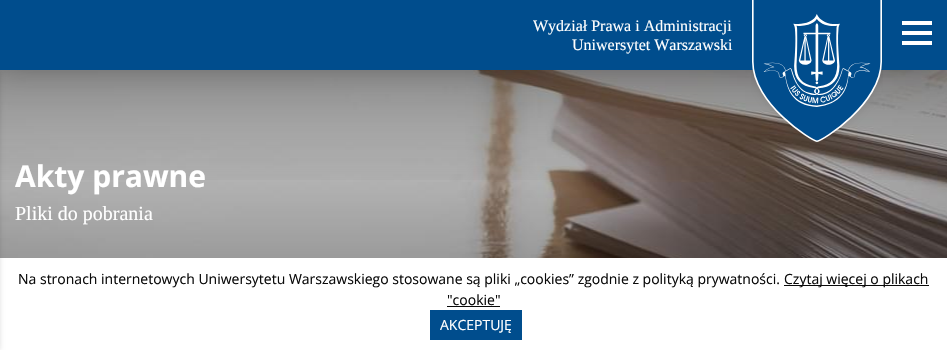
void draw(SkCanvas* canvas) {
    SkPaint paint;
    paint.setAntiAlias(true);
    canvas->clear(0xFFFFFFFF);
    canvas->drawImageRect(SkImages::DeferredFromEncodedData(SkData::MakeFromFileName("img2.png")), SkRect::MakeXYWH(0, 70, 947, 188), SkSamplingOptions());
    {
        const SkColor colors[] = {0x40000000, 0x00000000};
        const float stops[] = {0, 0.5f};
        const SkPoint ends[] = {{474, 70}, {474, 310}};
        paint.setShader(SkGradientShader::MakeLinear(ends, colors, stops, 2, SkTileMode::kClamp));
        paint.setAlpha(255);
    }
    canvas->drawRect(SkRect::MakeXYWH(0, 70, 947, 110), paint);
    paint.setShader(nullptr);
    paint.setColor(0x40000000);
    paint.setMaskFilter(SkMaskFilter::MakeBlur(kNormal_SkBlurStyle, 15));
    canvas->drawRect(SkRect::MakeXYWH(0, 0, 947, 70), paint);
    paint.setMaskFilter(nullptr);
    paint.setColor(0x1F000000);
    paint.setMaskFilter(SkMaskFilter::MakeBlur(kNormal_SkBlurStyle, 2.5f));
    canvas->drawRect(SkRect::MakeXYWH(-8, 70, 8, 280), paint);
    paint.setMaskFilter(nullptr);
    paint.setColor(0xFF004D8D);
    canvas->drawRect(SkRect::MakeXYWH(0, 0, 947, 70), paint);
    SkFont font1(fontMgr->matchFamilyStyle("Liberation Serif", SkFontStyle::Normal()), 16);
    font1.setSubpixel(true);
    paint.setColor(0xFFFFFFFF);
    canvas->drawString("Wydział Prawa i Administracji", 533, 31, font1, paint);
    canvas->drawString("Uniwersytet Warszawski", 572, 50, font1, paint);
    canvas->drawImageRect(SkImages::DeferredFromEncodedData(SkData::MakeFromFileName("img1.png")), SkRect::MakeXYWH(751, 0, 132, 142), SkSamplingOptions());
    canvas->drawRect(SkRect::MakeXYWH(902, 31, 30, 4), paint);
    canvas->drawRect(SkRect::MakeXYWH(902, 21, 30, 4), paint);
    canvas->drawRect(SkRect::MakeXYWH(902, 41, 30, 4), paint);
    SkFont font2(fontMgr->matchFamilyStyle("Open Sans", SkFontStyle::Bold()), 30);
    font2.setSubpixel(true);
    canvas->drawString("Akty prawne", 15, 187, font2, paint);
    SkFont font3(fontMgr->matchFamilyStyle("Liberation Serif", SkFontStyle::Normal()), 20);
    font3.setSubpixel(true);
    canvas->drawString("Pliki do pobrania", 15, 220, font3, paint);
    SkFont font4(fontMgr->matchFamilyStyle("Open Sans", SkFontStyle::Normal()), 14);
    font4.setSubpixel(true);
    paint.setColor(0xFF0A0A0A);
    canvas->drawString("Na stronach internetowych Uniwersytetu Warszawskiego stosowane są pliki „cookies” zgodnie z polityką prywatności.", 18, 284, font4, paint);
    canvas->drawRect(SkRect::MakeXYWH(784, 285, 145, 1), paint);
    canvas->drawString("Czytaj więcej o plikach", 784, 284, font4, paint);
    canvas->drawString("\"cookie\"", 447, 305, font4, paint);
    canvas->drawRect(SkRect::MakeXYWH(447, 306, 53, 1), paint);
    paint.setColor(0xFF004D8D);
    canvas->drawRect(SkRect::MakeXYWH(430, 310, 92, 30), paint);
    paint.setColor(0xFFFFFFFF);
    canvas->drawString("AKCEPTUJĘ", 440, 330, font4, paint);
}
